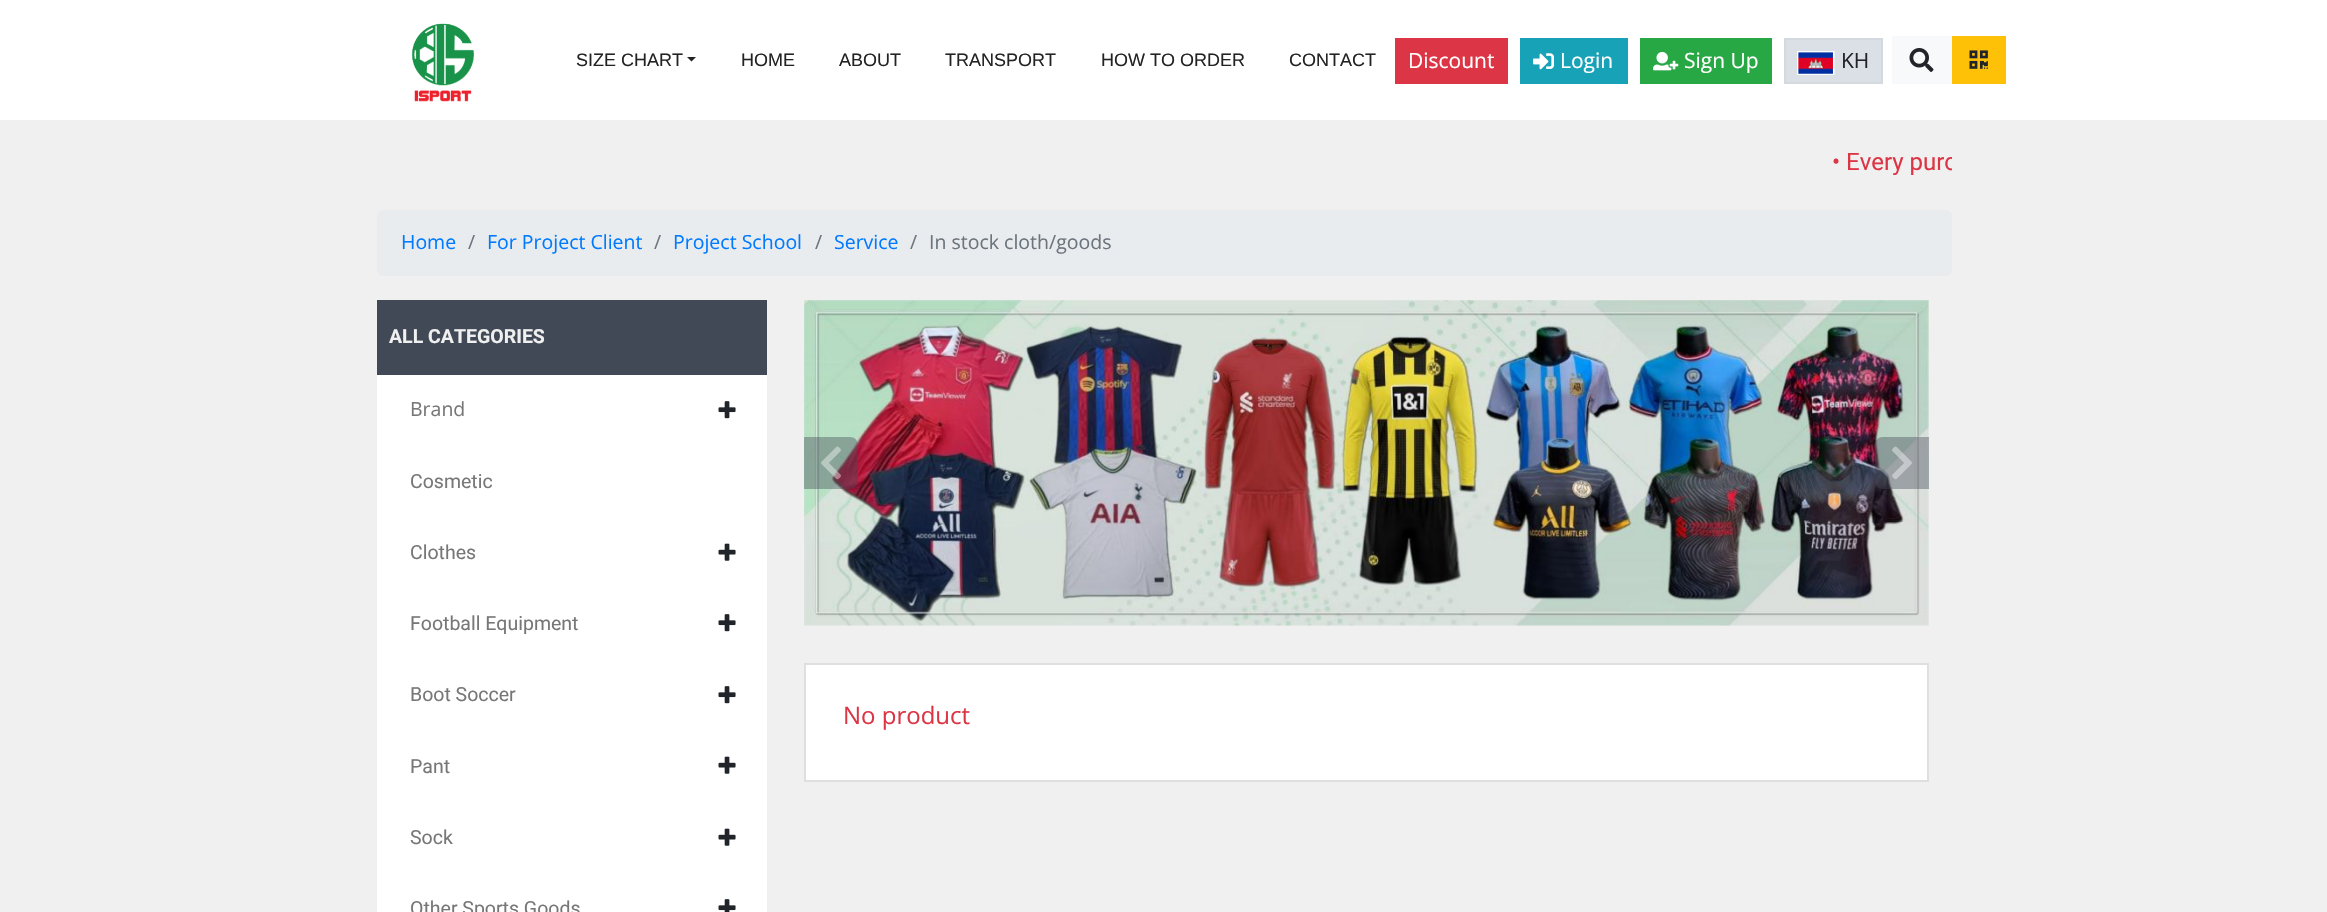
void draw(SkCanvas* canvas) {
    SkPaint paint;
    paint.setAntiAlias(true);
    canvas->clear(0xFFF0F0F0);
    paint.setColor(0xFFFFFFFF);
    canvas->drawRect(SkRect::MakeXYWH(0, 0, 2327, 120), paint);
    canvas->drawImageRect(SkImages::DeferredFromEncodedData(SkData::MakeFromFileName("img1.png")), SkRect::MakeXYWH(412, 23, 62, 79), SkSamplingOptions());
    SkFont font1(fontMgr->matchFamilyStyle("Liberation Sans", SkFontStyle::Normal()), 18);
    font1.setSubpixel(true);
    paint.setColor(0xFF232323);
    canvas->drawString("SIZE CHART", 576, 66, font1, paint);
    canvas->drawPath(SkPathBuilder().moveTo(687, 57).lineTo(696, 57).lineTo(691.5f, 61.5f).close().detach(), paint);
    canvas->drawString("HOME", 741, 66, font1, paint);
    canvas->drawString("ABOUT", 839, 66, font1, paint);
    canvas->drawString("TRANSPORT", 945, 66, font1, paint);
    canvas->drawString("HOW TO ORDER", 1101, 66, font1, paint);
    canvas->drawString("CONTACT", 1289, 66, font1, paint);
    paint.setColor(0xFFDC3545);
    canvas->drawRect(SkRect::MakeXYWH(1395, 38, 113, 46), paint);
    SkFont font2(fontMgr->matchFamilyStyle("Open Sans", SkFontStyle::Normal()), 21);
    font2.setSubpixel(true);
    paint.setColor(0xFFFFFFFF);
    canvas->drawString("Discount", 1408, 68, font2, paint);
    paint.setColor(0xFF17A2B8);
    canvas->drawRect(SkRect::MakeXYWH(1520, 38, 108, 46), paint);
    canvas->drawImageRect(SkImages::DeferredFromEncodedData(SkData::MakeFromFileName("img2.png")), SkRect::MakeXYWH(1533, 53, 21, 17), SkSamplingOptions());
    paint.setColor(0xFFFFFFFF);
    canvas->drawString("Login", 1560, 68, font2, paint);
    paint.setColor(0xFF28A745);
    canvas->drawRect(SkRect::MakeXYWH(1640, 38, 132, 46), paint);
    canvas->drawImageRect(SkImages::DeferredFromEncodedData(SkData::MakeFromFileName("img3.png")), SkRect::MakeXYWH(1653, 51, 26, 20), SkSamplingOptions());
    paint.setColor(0xFFFFFFFF);
    canvas->drawString("Sign Up", 1684, 68, font2, paint);
    paint.setColor(0xFFDAE0E5);
    canvas->drawRect(SkRect::MakeXYWH(1785, 39, 97, 44), paint);
    paint.setStyle(SkPaint::kStroke_Style);
    paint.setStrokeWidth(2);
    paint.setColor(0xFFD3D9DF);
    canvas->drawRect(SkRect::MakeXYWH(1785, 39, 97, 44), paint);
    canvas->drawImageRect(SkImages::DeferredFromEncodedData(SkData::MakeFromFileName("img4.png")), SkRect::MakeXYWH(1797, 51, 38, 24), SkSamplingOptions());
    paint.setStyle(SkPaint::kFill_Style);
    paint.setColor(0xFF212529);
    canvas->drawString("KH", 1841, 68, font2, paint);
    paint.setColor(0xFFF8F9FA);
    canvas->drawRect(SkRect::MakeXYWH(1892, 36, 60, 48), paint);
    canvas->drawImageRect(SkImages::DeferredFromEncodedData(SkData::MakeFromFileName("img5.png")), SkRect::MakeXYWH(1909, 48, 25, 24), SkSamplingOptions());
    paint.setColor(0xFFFFC107);
    canvas->drawRect(SkRect::MakeXYWH(1952, 36, 54, 48), paint);
    canvas->drawImageRect(SkImages::DeferredFromEncodedData(SkData::MakeFromFileName("img6.png")), SkRect::MakeXYWH(1969, 50, 19, 19), SkSamplingOptions());
    canvas->save();
    canvas->clipRect(SkRect::MakeXYWH(377, 144, 1575, 36));
    SkFont font3(fontMgr->matchFamilyStyle("Roboto", SkFontStyle::Normal()), 24);
    font3.setSubpixel(true);
    paint.setColor(0xFFDC3545);
    canvas->drawString("• Every purc", 1832, 170, font3, paint);
    canvas->restore();
    paint.setColor(0xFFE9ECEF);
    canvas->drawRoundRect(SkRect::MakeXYWH(377, 210, 1575, 66), 6, 6, paint);
    SkFont font4(fontMgr->matchFamilyStyle("Open Sans", SkFontStyle::Normal()), 19.5f);
    font4.setSubpixel(true);
    paint.setColor(0xFF007BFF);
    canvas->drawString("Home", 401, 249, font4, paint);
    paint.setColor(0xFF6C757D);
    canvas->drawString("/", 468, 249, font4, paint);
    paint.setColor(0xFF007BFF);
    canvas->drawString("For Project Client", 487, 249, font4, paint);
    paint.setColor(0xFF6C757D);
    canvas->drawString("/", 654, 249, font4, paint);
    paint.setColor(0xFF007BFF);
    canvas->drawString("Project School", 673, 249, font4, paint);
    paint.setColor(0xFF6C757D);
    canvas->drawString("/", 815, 249, font4, paint);
    paint.setColor(0xFF007BFF);
    canvas->drawString("Service", 834, 249, font4, paint);
    paint.setColor(0xFF6C757D);
    canvas->drawString("/", 910, 249, font4, paint);
    canvas->drawString("In stock cloth/goods", 929, 249, font4, paint);
    paint.setColor(0xFF414956);
    canvas->drawRect(SkRect::MakeXYWH(377, 300, 390, 75), paint);
    SkFont font5(fontMgr->matchFamilyStyle("Roboto", SkFontStyle::Bold()), 19.5f);
    font5.setSubpixel(true);
    paint.setColor(0xFFF0F0F0);
    canvas->drawString("ALL CATEGORIES", 389, 343, font5, paint);
    paint.setColor(0xFFFFFFFF);
    canvas->drawRect(SkRect::MakeXYWH(377, 375, 390, 537), paint);
    paint.setColor(0xFF777777);
    canvas->drawString("Brand", 410, 416, font4, paint);
    canvas->drawImageRect(SkImages::DeferredFromEncodedData(SkData::MakeFromFileName("img7.png")), SkRect::MakeXYWH(718, 401, 18, 18), SkSamplingOptions());
    SkFont font6(fontMgr->matchFamilyStyle("Roboto", SkFontStyle::Normal()), 19.5f);
    font6.setSubpixel(true);
    canvas->drawString("Cosmetic", 410, 488, font6, paint);
    canvas->drawString("Clothes", 410, 559, font6, paint);
    canvas->drawImageRect(SkImages::DeferredFromEncodedData(SkData::MakeFromFileName("img8.png")), SkRect::MakeXYWH(718, 543, 18, 18), SkSamplingOptions());
    canvas->drawString("Football Equipment", 410, 630, font6, paint);
    canvas->drawImageRect(SkImages::DeferredFromEncodedData(SkData::MakeFromFileName("img7.png")), SkRect::MakeXYWH(718, 614, 18, 18), SkSamplingOptions());
    canvas->drawString("Boot Soccer", 410, 701, font6, paint);
    canvas->drawImageRect(SkImages::DeferredFromEncodedData(SkData::MakeFromFileName("img7.png")), SkRect::MakeXYWH(718, 686, 18, 18), SkSamplingOptions());
    canvas->drawString("Pant", 410, 773, font6, paint);
    canvas->drawImageRect(SkImages::DeferredFromEncodedData(SkData::MakeFromFileName("img8.png")), SkRect::MakeXYWH(718, 756, 18, 18), SkSamplingOptions());
    canvas->drawString("Sock", 410, 844, font6, paint);
    canvas->drawImageRect(SkImages::DeferredFromEncodedData(SkData::MakeFromFileName("img8.png")), SkRect::MakeXYWH(718, 828, 18, 18), SkSamplingOptions());
    canvas->drawString("Other Sports Goods", 410, 915, font6, paint);
    canvas->drawImageRect(SkImages::DeferredFromEncodedData(SkData::MakeFromFileName("img9.png")), SkRect::MakeXYWH(718, 899, 18, 13), SkSamplingOptions());
    canvas->drawImageRect(SkImages::DeferredFromEncodedData(SkData::MakeFromFileName("img10.png")), SkRect::MakeXYWH(804, 300, 1125, 326), SkSamplingOptions());
    paint.setColor(0x66414956);
    canvas->drawPath(SkPathBuilder().moveTo(804, 437).lineTo(850, 437).cubicTo(854.5f, 437, 858, 440.5f, 858, 445).lineTo(858, 481).cubicTo(858, 485.5f, 854.5f, 489, 850, 489).lineTo(804, 489).close().detach(), paint);
    canvas->drawImageRect(SkImages::DeferredFromEncodedData(SkData::MakeFromFileName("img11.png")), SkRect::MakeXYWH(821, 446, 20, 34), SkSamplingOptions());
    canvas->drawPath(SkPathBuilder().moveTo(1883, 437).lineTo(1929, 437).lineTo(1929, 489).lineTo(1883, 489).cubicTo(1878.5f, 489, 1875, 485.5f, 1875, 481).lineTo(1875, 445).cubicTo(1875, 440.5f, 1878.5f, 437, 1883, 437).close().detach(), paint);
    canvas->drawImageRect(SkImages::DeferredFromEncodedData(SkData::MakeFromFileName("img12.png")), SkRect::MakeXYWH(1892, 446, 20, 34), SkSamplingOptions());
    paint.setColor(0xFFFFFFFF);
    canvas->drawRect(SkRect::MakeXYWH(805, 664, 1123, 117), paint);
    paint.setStyle(SkPaint::kStroke_Style);
    paint.setColor(0xFFDFDFDF);
    canvas->drawRect(SkRect::MakeXYWH(805, 664, 1123, 117), paint);
    SkFont font7(fontMgr->matchFamilyStyle("Open Sans", SkFontStyle::Normal()), 24);
    font7.setSubpixel(true);
    paint.setStyle(SkPaint::kFill_Style);
    paint.setColor(0xFFDC3545);
    canvas->drawString("No product", 843, 724, font7, paint);
}
